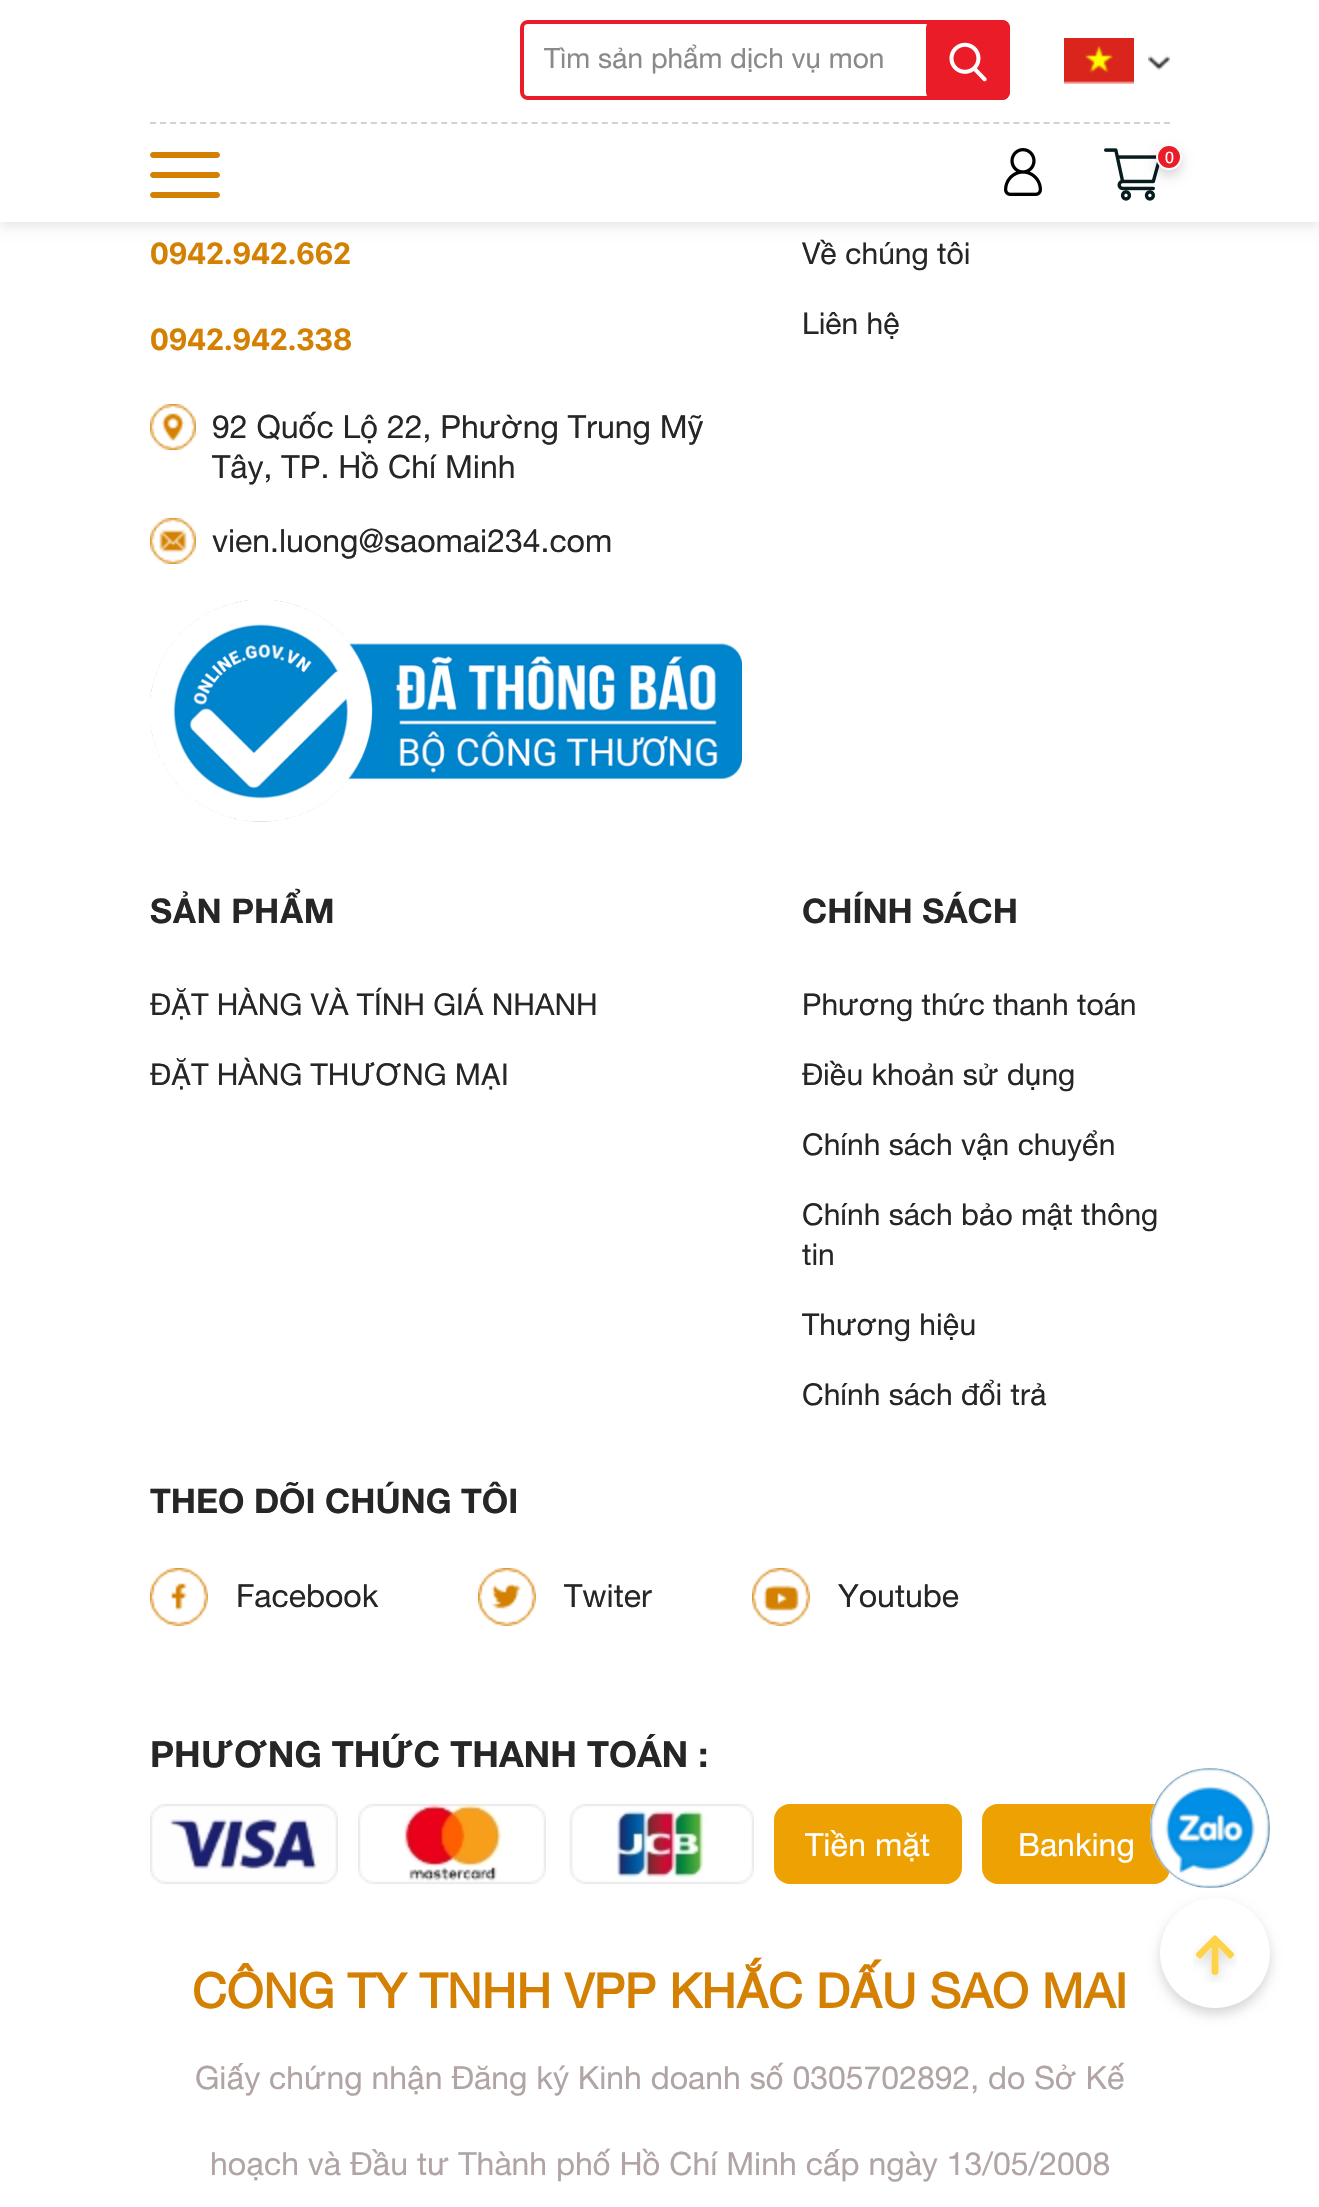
void draw(SkCanvas* canvas) {
    SkPaint paint;
    paint.setAntiAlias(true);
    canvas->clear(0xFFFFFFFF);
    paint.setColor(0x1A000000);
    paint.setMaskFilter(SkMaskFilter::MakeBlur(kNormal_SkBlurStyle, 6));
    canvas->drawRect(SkRect::MakeXYWH(0, 4, 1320, 222), paint);
    paint.setMaskFilter(nullptr);
    paint.setColor(0xFFFFFFFF);
    canvas->drawRect(SkRect::MakeXYWH(0, 0, 1319, 222), paint);
    paint.setStyle(SkPaint::kStroke_Style);
    paint.setStrokeWidth(4);
    paint.setColor(0xFFE91C28);
    canvas->drawRoundRect(SkRect::MakeXYWH(522, 22, 486, 76), 6, 6, paint);
    SkFont font1(fontMgr->matchFamilyStyle("Helvetica Neue", SkFontStyle::Normal()), 28);
    font1.setSubpixel(true);
    paint.setStyle(SkPaint::kFill_Style);
    paint.setColor(0xFF8A8A8A);
    canvas->drawString("Tìm sản phẩm dịch vụ mon", 544, 68, font1, paint);
    paint.setColor(0xFFE91C28);
    canvas->drawRoundRect(SkRect::MakeXYWH(926, 20, 84, 80), 8, 8, paint);
    canvas->drawImageRect(SkImages::DeferredFromEncodedData(SkData::MakeFromFileName("img1.png")), SkRect::MakeXYWH(949, 42, 38, 40), SkSamplingOptions());
    canvas->drawImageRect(SkImages::DeferredFromEncodedData(SkData::MakeFromFileName("img2.png")), SkRect::MakeXYWH(1064, 38, 70, 46), SkSamplingOptions());
    canvas->drawImageRect(SkImages::DeferredFromEncodedData(SkData::MakeFromFileName("img3.png")), SkRect::MakeXYWH(1148, 55, 22, 16), SkSamplingOptions());
    paint.setStyle(SkPaint::kStroke_Style);
    paint.setStrokeWidth(2);
    paint.setColor(0xFFD2D2D2);
    paint.setPathEffect(SkDashPathEffect::Make({{6, 4.04f}}, 0));
    canvas->drawPath(SkPathBuilder().moveTo(150, 123).lineTo(1170, 123).detach(), paint);
    paint.setPathEffect(nullptr);
    paint.setStyle(SkPaint::kFill_Style);
    paint.setColor(0xFFD48002);
    canvas->drawPath(SkPathBuilder().moveTo(153, 152).lineTo(186, 152).lineTo(186, 158).lineTo(153, 158).cubicTo(151.5f, 158, 150, 156.5f, 150, 155).cubicTo(150, 153.5f, 151.5f, 152, 153, 152).close().detach(), paint);
    canvas->drawPath(SkPathBuilder().moveTo(186, 152).lineTo(217, 152).cubicTo(218.5f, 152, 220, 153.5f, 220, 155).cubicTo(220, 156.5f, 218.5f, 158, 217, 158).lineTo(186, 158).close().detach(), paint);
    canvas->drawPath(SkPathBuilder().moveTo(153, 172).lineTo(186, 172).lineTo(186, 178).lineTo(153, 178).cubicTo(151.5f, 178, 150, 176.5f, 150, 175).cubicTo(150, 173.5f, 151.5f, 172, 153, 172).close().detach(), paint);
    canvas->drawPath(SkPathBuilder().moveTo(186, 172).lineTo(217, 172).cubicTo(218.5f, 172, 220, 173.5f, 220, 175).cubicTo(220, 176.5f, 218.5f, 178, 217, 178).lineTo(186, 178).close().detach(), paint);
    canvas->drawPath(SkPathBuilder().moveTo(153, 192).lineTo(186, 192).lineTo(186, 198).lineTo(153, 198).cubicTo(151.5f, 198, 150, 196.5f, 150, 195).cubicTo(150, 193.5f, 151.5f, 192, 153, 192).close().detach(), paint);
    canvas->drawPath(SkPathBuilder().moveTo(186, 192).lineTo(217, 192).cubicTo(218.5f, 192, 220, 193.5f, 220, 195).cubicTo(220, 196.5f, 218.5f, 198, 217, 198).lineTo(186, 198).close().detach(), paint);
    canvas->drawImageRect(SkImages::DeferredFromEncodedData(SkData::MakeFromFileName("img4.png")), SkRect::MakeXYWH(1004, 148, 38, 48), SkSamplingOptions());
    canvas->drawImageRect(SkImages::DeferredFromEncodedData(SkData::MakeFromFileName("img5.png")), SkRect::MakeXYWH(1104, 148, 56, 53), SkSamplingOptions());
    paint.setColor(0x29000000);
    paint.setMaskFilter(SkMaskFilter::MakeBlur(kNormal_SkBlurStyle, 6));
    canvas->drawRoundRect(SkRect::MakeXYWH(1156, 150, 26, 26), 13, 13, paint);
    paint.setMaskFilter(nullptr);
    paint.setColor(0xFFE91C28);
    canvas->drawCircle(1169, 157, 12, paint);
    paint.setStyle(SkPaint::kStroke_Style);
    paint.setColor(0xFFFFFFFF);
    canvas->drawCircle(1169, 157, 12, paint);
    SkFont font2(fontMgr->matchFamilyStyle("Helvetica Neue", SkFontStyle::Normal()), 16);
    font2.setSubpixel(true);
    paint.setStyle(SkPaint::kFill_Style);
    canvas->drawString("0", 1165, 163, font2, paint);
    SkFont font3(fontMgr->matchFamilyStyle("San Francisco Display", SkFontStyle::Bold()), 32);
    font3.setSubpixel(true);
    paint.setColor(0xFFD48002);
    canvas->drawString("0942.942.662", 150, 264, font3, paint);
    canvas->drawString("0942.942.338", 150, 350, font3, paint);
    canvas->drawImageRect(SkImages::DeferredFromEncodedData(SkData::MakeFromFileName("img6.png")), SkRect::MakeXYWH(150, 404, 46, 46), SkSamplingOptions());
    SkFont font4(fontMgr->matchFamilyStyle("Helvetica Neue", SkFontStyle::Normal()), 32);
    font4.setSubpixel(true);
    paint.setColor(0xFF262626);
    canvas->drawString("92 Quốc Lộ 22, Phường Trung Mỹ", 212, 438, font4, paint);
    canvas->drawString("Tây, TP. Hồ Chí Minh", 212, 478, font4, paint);
    canvas->drawImageRect(SkImages::DeferredFromEncodedData(SkData::MakeFromFileName("img7.png")), SkRect::MakeXYWH(150, 518, 46, 46), SkSamplingOptions());
    canvas->drawString("vien.luong@saomai234.com", 212, 552, font4, paint);
    canvas->drawImageRect(SkImages::DeferredFromEncodedData(SkData::MakeFromFileName("img8.png")), SkRect::MakeXYWH(150, 600, 592, 222), SkSamplingOptions());
    SkFont font5(fontMgr->matchFamilyStyle("Helvetica Neue", SkFontStyle::Normal()), 30);
    font5.setSubpixel(true);
    canvas->drawString("Về chúng tôi", 802, 264, font5, paint);
    canvas->drawString("Liên hệ", 802, 334, font5, paint);
    SkFont font6(fontMgr->matchFamilyStyle("Helvetica Neue", SkFontStyle::Bold()), 34);
    font6.setSubpixel(true);
    canvas->drawString("SẢN PHẨM", 150, 923, font6, paint);
    canvas->drawString("ĐẶT HÀNG VÀ TÍNH GIÁ NHANH", 150, 1015, font5, paint);
    canvas->drawString("ĐẶT HÀNG THƯƠNG MẠI", 150, 1085, font5, paint);
    canvas->drawString("CHÍNH SÁCH", 802, 923, font6, paint);
    canvas->drawString("Phương thức thanh toán", 802, 1015, font5, paint);
    canvas->drawString("Điều khoản sử dụng", 802, 1085, font5, paint);
    canvas->drawString("Chính sách vận chuyển", 802, 1155, font5, paint);
    canvas->drawString("Chính sách bảo mật thông", 802, 1225, font5, paint);
    canvas->drawString("tin", 802, 1265, font5, paint);
    canvas->drawString("Thương hiệu", 802, 1335, font5, paint);
    canvas->drawString("Chính sách đổi trả", 802, 1405, font5, paint);
    canvas->drawString("THEO DÕI CHÚNG TÔI", 150, 1513, font6, paint);
    canvas->drawImageRect(SkImages::DeferredFromEncodedData(SkData::MakeFromFileName("img9.png")), SkRect::MakeXYWH(150, 1568, 58, 58), SkSamplingOptions());
    canvas->drawString("Facebook", 236, 1607, font4, paint);
    canvas->drawImageRect(SkImages::DeferredFromEncodedData(SkData::MakeFromFileName("img10.png")), SkRect::MakeXYWH(478, 1568, 58, 58), SkSamplingOptions());
    canvas->drawString("Twiter", 564, 1607, font4, paint);
    canvas->drawImageRect(SkImages::DeferredFromEncodedData(SkData::MakeFromFileName("img11.png")), SkRect::MakeXYWH(752, 1568, 58, 58), SkSamplingOptions());
    canvas->drawString("Youtube", 838, 1607, font4, paint);
    SkFont font7(fontMgr->matchFamilyStyle("Helvetica Neue", SkFontStyle::Bold()), 36);
    font7.setSubpixel(true);
    canvas->drawString("PHƯƠNG THỨC THANH TOÁN :", 150, 1767, font7, paint);
    canvas->drawImageRect(SkImages::DeferredFromEncodedData(SkData::MakeFromFileName("img12.png")), SkRect::MakeXYWH(150, 1804, 188, 80), SkSamplingOptions());
    canvas->drawImageRect(SkImages::DeferredFromEncodedData(SkData::MakeFromFileName("img13.png")), SkRect::MakeXYWH(358, 1804, 188, 80), SkSamplingOptions());
    canvas->drawImageRect(SkImages::DeferredFromEncodedData(SkData::MakeFromFileName("img14.png")), SkRect::MakeXYWH(566, 1804, 188, 80), SkSamplingOptions());
    paint.setColor(0xFFEEA103);
    canvas->drawRoundRect(SkRect::MakeXYWH(774, 1804, 188, 80), 16, 16, paint);
    paint.setColor(0xFFFFFFFF);
    canvas->drawString("Tiền mặt", 805, 1856, font4, paint);
    paint.setColor(0xFFEEA103);
    canvas->drawRoundRect(SkRect::MakeXYWH(982, 1804, 188, 80), 16, 16, paint);
    paint.setColor(0xFFFFFFFF);
    canvas->drawString("Banking", 1018, 1856, font4, paint);
    SkFont font8(fontMgr->matchFamilyStyle("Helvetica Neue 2", SkFontStyle::Bold()), 48);
    font8.setSubpixel(true);
    paint.setColor(0xFFD48002);
    canvas->drawString("CÔNG TY TNHH VPP KHẮC DẤU SAO MAI", 192, 2008, font8, paint);
    paint.setColor(0xFFB1A4A4);
    canvas->drawString("Giấy chứng nhận Đăng ký Kinh doanh số 0305702892, do Sở Kế", 195, 2089, font4, paint);
    canvas->drawString("hoạch và Đầu tư Thành phố Hồ Chí Minh cấp ngày 13/05/2008", 210, 2175, font4, paint);
    paint.setColor(0xFF004A7F);
    canvas->drawCircle(1210, 1828, 60, paint);
    canvas->drawImageRect(SkImages::DeferredFromEncodedData(SkData::MakeFromFileName("img16.png")), SkRect::MakeXYWH(1150, 1768, 120, 120), SkSamplingOptions());
    paint.setColor(0x29000000);
    paint.setMaskFilter(SkMaskFilter::MakeBlur(kNormal_SkBlurStyle, 6));
    canvas->drawRoundRect(SkRect::MakeXYWH(1160, 1904, 110, 110), 55, 55, paint);
    paint.setMaskFilter(nullptr);
    paint.setColor(0xFFFFFFFF);
    canvas->drawCircle(1215, 1953, 55, paint);
    canvas->drawImageRect(SkImages::DeferredFromEncodedData(SkData::MakeFromFileName("img15.png")), SkRect::MakeXYWH(1193, 1935, 44, 48), SkSamplingOptions());
}
